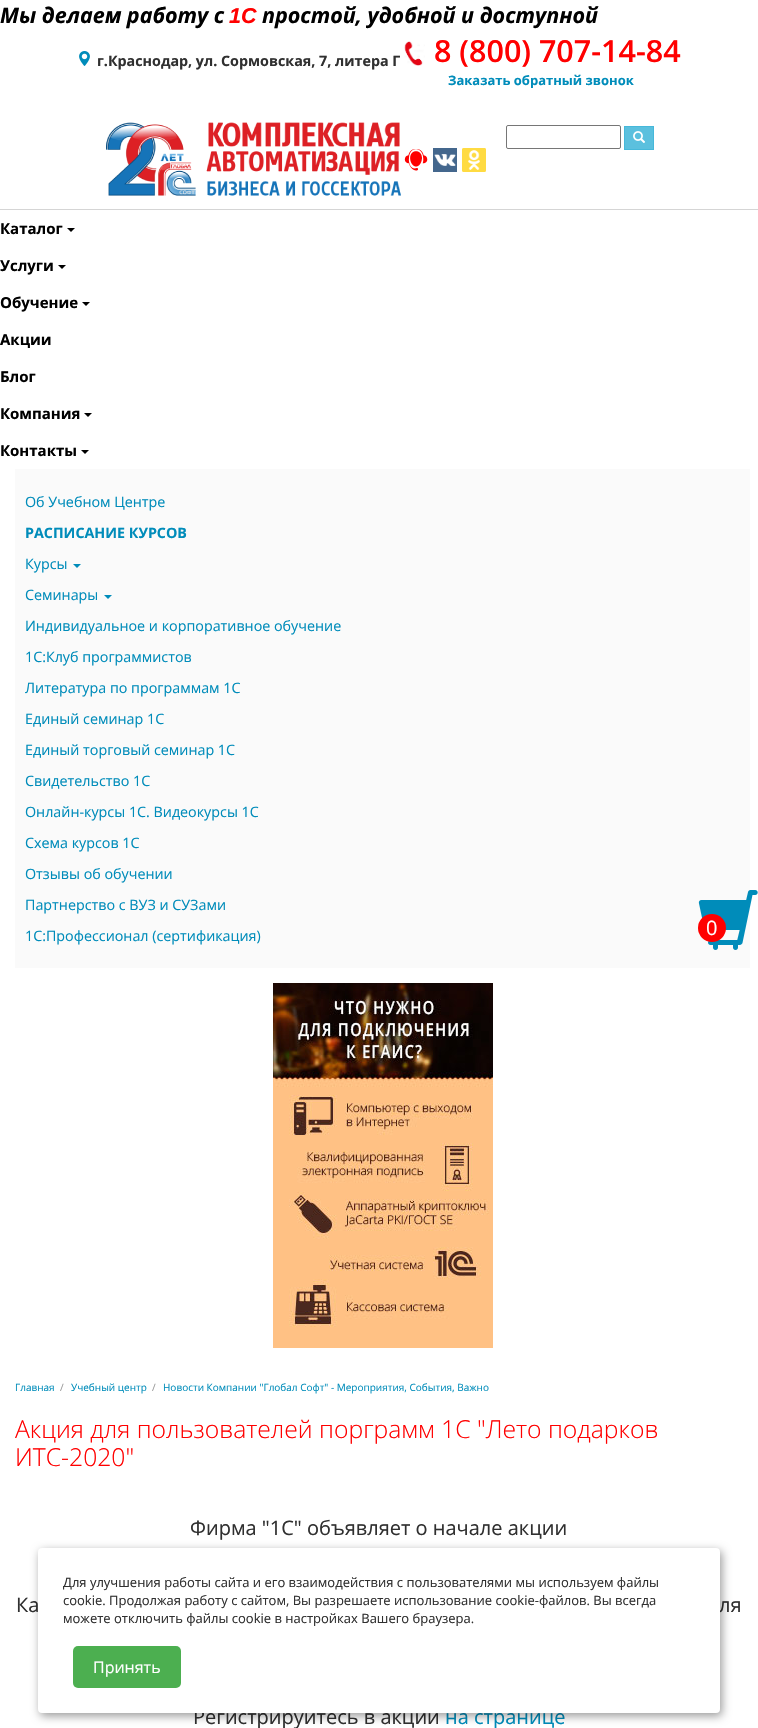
void draw(SkCanvas* canvas) {
    SkPaint paint;
    paint.setAntiAlias(true);
    canvas->clear(0xFFFFFFFF);
    SkFont font1(fontMgr->matchFamilyStyle("Open Sans", SkFontStyle::BoldItalic()), 21.5f);
    font1.setSubpixel(true);
    paint.setColor(0xFF000000);
    canvas->drawString("Мы делаем работу с", 0, 23, font1, paint);
    SkFont font2(fontMgr->matchFamilyStyle("Liberation Sans", SkFontStyle::BoldItalic()), 21.5f);
    font2.setSubpixel(true);
    paint.setColor(0xFFFF0000);
    canvas->drawString("1С", 229, 23, font2, paint);
    paint.setColor(0xFF000000);
    canvas->drawString("простой, удобной и доступной", 262, 23, font1, paint);
    canvas->drawImageRect(SkImages::DeferredFromEncodedData(SkData::MakeFromFileName("img1.png")), SkRect::MakeXYWH(79, 51, 11, 15), SkSamplingOptions());
    SkFont font3(fontMgr->matchFamilyStyle("Open Sans", SkFontStyle::Bold()), 14.3f);
    font3.setSubpixel(true);
    paint.setColor(0xFF303030);
    canvas->drawString("г.Краснодар, ул. Сормовская, 7, литера Г", 97, 66, font3, paint);
    canvas->drawImageRect(SkImages::DeferredFromEncodedData(SkData::MakeFromFileName("img2.png")), SkRect::MakeXYWH(404, 41, 21, 25), SkSamplingOptions());
    SkFont font4(fontMgr->matchFamilyStyle("Open Sans", SkFontStyle(600, SkFontStyle::kNormal_Width, SkFontStyle::kUpright_Slant)), 30.5f);
    font4.setSubpixel(true);
    paint.setColor(0xFFFF0000);
    canvas->drawString("8 (800) 707-14-84", 434, 62, font4, paint);
    SkFont font5(fontMgr->matchFamilyStyle("Open Sans", SkFontStyle::Bold()), 13);
    font5.setSubpixel(true);
    paint.setColor(0xFF008CBA);
    canvas->drawString("Заказать обратный звонок", 448, 85, font5, paint);
    canvas->drawImageRect(SkImages::DeferredFromEncodedData(SkData::MakeFromFileName("img3.png")), SkRect::MakeXYWH(106, 122, 295, 74), SkSamplingOptions());
    paint.setStyle(SkPaint::kStroke_Style);
    paint.setStrokeWidth(1);
    paint.setColor(0xFF767676);
    canvas->drawRoundRect(SkRect::MakeXYWH(506.5f, 125.5f, 114, 23), 1.5f, 1.5f, paint);
    paint.setStyle(SkPaint::kFill_Style);
    paint.setColor(0xFF5BC0DE);
    canvas->drawRect(SkRect::MakeXYWH(624.5f, 126.5f, 29, 23), paint);
    paint.setStyle(SkPaint::kStroke_Style);
    paint.setColor(0xFF46B8DA);
    canvas->drawRect(SkRect::MakeXYWH(624.5f, 126.5f, 29, 23), paint);
    canvas->drawImageRect(SkImages::DeferredFromEncodedData(SkData::MakeFromFileName("img4.png")), SkRect::MakeXYWH(633, 131, 12, 12), SkSamplingOptions());
    canvas->drawImageRect(SkImages::DeferredFromEncodedData(SkData::MakeFromFileName("img5.png")), SkRect::MakeXYWH(404, 149, 24, 22), SkSamplingOptions());
    canvas->drawImageRect(SkImages::DeferredFromEncodedData(SkData::MakeFromFileName("img6.png")), SkRect::MakeXYWH(433, 148, 24, 24), SkSamplingOptions());
    canvas->drawImageRect(SkImages::DeferredFromEncodedData(SkData::MakeFromFileName("img7.png")), SkRect::MakeXYWH(462, 148, 24, 24), SkSamplingOptions());
    paint.setStyle(SkPaint::kFill_Style);
    paint.setColor(0xFFD5D5D5);
    canvas->drawRect(SkRect::MakeXYWH(0, 209, 758, 1), paint);
    SkFont font6(fontMgr->matchFamilyStyle("Open Sans", SkFontStyle::Bold()), 15);
    font6.setSubpixel(true);
    paint.setColor(0xFF000000);
    canvas->drawString("Каталог", 0, 234, font6, paint);
    canvas->drawPath(SkPathBuilder().moveTo(67, 228).lineTo(75, 228).lineTo(71, 232).close().detach(), paint);
    canvas->drawString("Услуги", 0, 271, font6, paint);
    canvas->drawPath(SkPathBuilder().moveTo(58, 265).lineTo(66, 265).lineTo(62, 269).close().detach(), paint);
    canvas->drawString("Обучение", 0, 308, font6, paint);
    canvas->drawPath(SkPathBuilder().moveTo(82, 302).lineTo(90, 302).lineTo(86, 306).close().detach(), paint);
    canvas->drawString("Акции", 0, 345, font6, paint);
    canvas->drawString("Блог", 0, 382, font6, paint);
    canvas->drawString("Компания", 0, 419, font6, paint);
    canvas->drawPath(SkPathBuilder().moveTo(84, 413).lineTo(92, 413).lineTo(88, 417).close().detach(), paint);
    canvas->drawString("Контакты", 0, 456, font6, paint);
    canvas->drawPath(SkPathBuilder().moveTo(81, 450).lineTo(89, 450).lineTo(85, 454).close().detach(), paint);
    paint.setColor(0xFFFAFAFA);
    canvas->drawRect(SkRect::MakeXYWH(15, 469, 735, 499), paint);
    SkFont font7(fontMgr->matchFamilyStyle("Open Sans", SkFontStyle::Normal()), 14.3f);
    font7.setSubpixel(true);
    paint.setColor(0xFF008CBA);
    canvas->drawString("Об Учебном Центре", 25, 507, font7, paint);
    canvas->drawString("РАСПИСАНИЕ КУРСОВ", 25, 538, font3, paint);
    canvas->drawString("Курсы", 25, 569, font7, paint);
    canvas->drawPath(SkPathBuilder().moveTo(73, 564).lineTo(81, 564).lineTo(77, 568).close().detach(), paint);
    canvas->drawString("Семинары", 25, 600, font7, paint);
    canvas->drawPath(SkPathBuilder().moveTo(104, 595).lineTo(112, 595).lineTo(108, 599).close().detach(), paint);
    canvas->drawString("Индивидуальное и корпоративное обучение", 25, 631, font7, paint);
    canvas->drawString("1С:Клуб программистов", 25, 662, font7, paint);
    canvas->drawString("Литература по программам 1С", 25, 693, font7, paint);
    canvas->drawString("Единый семинар 1С", 25, 724, font7, paint);
    canvas->drawString("Единый торговый семинар 1С", 25, 755, font7, paint);
    canvas->drawString("Свидетельство 1С", 25, 786, font7, paint);
    canvas->drawString("Онлайн-курсы 1С. Видеокурсы 1С", 25, 817, font7, paint);
    canvas->drawString("Схема курсов 1С", 25, 848, font7, paint);
    canvas->drawString("Отзывы об обучении", 25, 879, font7, paint);
    canvas->drawString("Партнерство с ВУЗ и СУЗами", 25, 910, font7, paint);
    canvas->drawString("1С:Профессионал (сертификация)", 25, 941, font7, paint);
    canvas->drawImageRect(SkImages::DeferredFromEncodedData(SkData::MakeFromFileName("img8.png")), SkRect::MakeXYWH(273, 983, 220, 365), SkSamplingOptions());
    SkFont font8(fontMgr->matchFamilyStyle("Open Sans", SkFontStyle::Normal()), 10);
    font8.setSubpixel(true);
    canvas->drawString("Главная", 15, 1391, font8, paint);
    paint.setColor(0xFF999999);
    canvas->drawString("/", 60, 1391, font8, paint);
    paint.setColor(0xFF008CBA);
    canvas->drawString("Учебный центр", 71, 1391, font8, paint);
    paint.setColor(0xFF999999);
    canvas->drawString("/", 152, 1391, font8, paint);
    paint.setColor(0xFF008CBA);
    canvas->drawString("Новости Компании \"Глобал Софт\" - Мероприятия, События, Важно", 163, 1391, font8, paint);
    SkFont font9(fontMgr->matchFamilyStyle("Open Sans", SkFontStyle(300, SkFontStyle::kNormal_Width, SkFontStyle::kUpright_Slant)), 24.7f);
    font9.setSubpixel(true);
    paint.setColor(0xFFFF0000);
    canvas->drawString("Акция для пользователей порграмм 1С \"Лето подарков", 15, 1438, font9, paint);
    canvas->drawString("ИТС-2020\"", 15, 1466, font9, paint);
    SkFont font10(fontMgr->matchFamilyStyle("Open Sans", SkFontStyle::Normal()), 20);
    font10.setSubpixel(true);
    paint.setColor(0xFF303030);
    canvas->drawString("Фирма \"1С\" объявляет о начале акции", 190, 1535, font10, paint);
    canvas->drawString("Ка", 16, 1612, font10, paint);
    canvas->drawString("ля", 719, 1612, font10, paint);
    canvas->drawString("Регистрируйтесь в акции", 193, 1724, font10, paint);
    paint.setColor(0xFF008CBA);
    canvas->drawString("на странице", 445, 1724, font10, paint);
    canvas->drawImageRect(SkImages::DeferredFromEncodedData(SkData::MakeFromFileName("img9.png")), SkRect::MakeXYWH(698, 890, 60, 60), SkSamplingOptions());
    paint.setColor(0xFFFF0000);
    canvas->drawCircle(712, 928, 14, paint);
    paint.setColor(0xFFFFFFFF);
    canvas->drawString("0", 706, 935, font10, paint);
    paint.setColor(0x66000000);
    paint.setMaskFilter(SkMaskFilter::MakeBlur(kNormal_SkBlurStyle, 5));
    canvas->drawRoundRect(SkRect::MakeXYWH(40, 1551, 682, 165), 4, 4, paint);
    paint.setMaskFilter(nullptr);
    paint.setColor(0xFFFFFFFF);
    canvas->drawRoundRect(SkRect::MakeXYWH(38, 1548, 682, 165), 4, 4, paint);
    SkFont font11(fontMgr->matchFamilyStyle("Open Sans", SkFontStyle::Normal()), 13);
    font11.setSubpixel(true);
    paint.setColor(0xFF303030);
    canvas->drawString("Для улучшения работы сайта и его взаимодействия с пользователями мы используем файлы", 63, 1587, font11, paint);
    canvas->drawString("cookie. Продолжая работу с сайтом, Вы разрешаете использование cookie-файлов. Вы всегда", 63, 1605, font11, paint);
    canvas->drawString("можете отключить файлы cookie в настройках Вашего браузера.", 63, 1623, font11, paint);
    paint.setColor(0xFF4CAF50);
    canvas->drawRoundRect(SkRect::MakeXYWH(73, 1646, 108, 42), 5, 5, paint);
    SkFont font12(fontMgr->matchFamilyStyle("Open Sans", SkFontStyle::Normal()), 16);
    font12.setSubpixel(true);
    paint.setColor(0xFFFFFFFF);
    canvas->drawString("Принять", 93, 1673, font12, paint);
}
